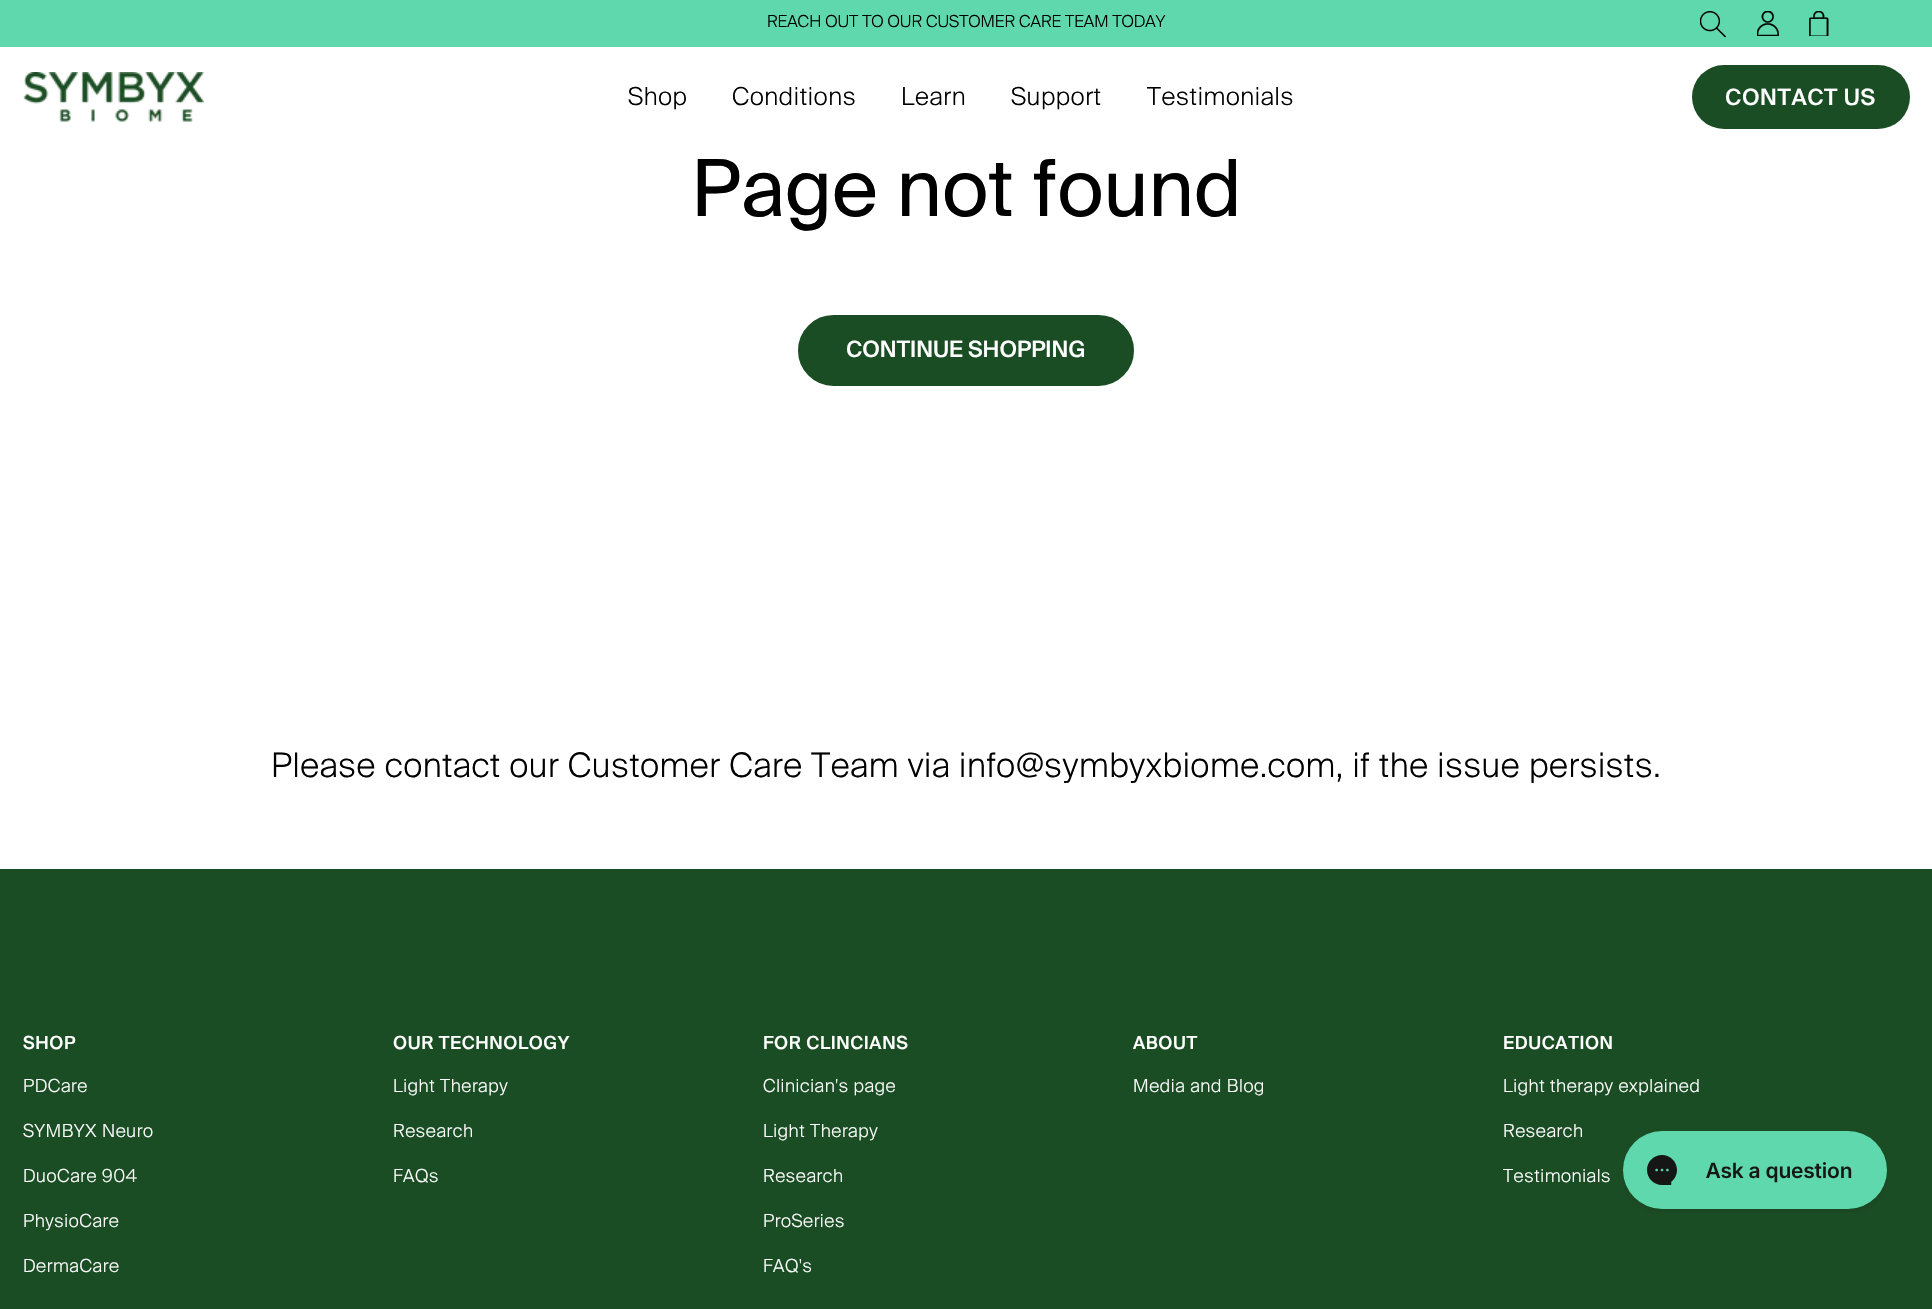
void draw(SkCanvas* canvas) {
    SkPaint paint;
    paint.setAntiAlias(true);
    auto spacedText = [&](const char* s, float x, float y, const SkFont& font, const SkPaint& ink, float letter, float word) {
        std::vector<SkGlyphID> glyphs(font.countText(s, strlen(s), SkTextEncoding::kUTF8));
        std::vector<float> xs(glyphs.size());
        font.textToGlyphs(s, strlen(s), SkTextEncoding::kUTF8, glyphs);
        font.getXPos(glyphs, xs, x);
        float extra = 0;
        for (size_t i = 0; i < glyphs.size(); i++) {
            xs[i] += extra;
            extra += letter + word * (glyphs[i] == font.unicharToGlyph(' '));
        }
        canvas->drawTextBlob(SkTextBlob::MakeFromPosHGlyphs(glyphs, xs, y, font), 0, 0, ink);
    };
    canvas->clear(0xFFFFFFFF);
    paint.setColor(0xFF5FD8AD);
    canvas->drawRect(SkRect::MakeXYWH(0, 0, 1932, 47), paint);
    SkFont font1(fontMgr->matchFamilyStyle("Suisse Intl", SkFontStyle(300, SkFontStyle::kNormal_Width, SkFontStyle::kUpright_Slant)), 16.5f);
    font1.setSubpixel(true);
    paint.setColor(0xFF000000);
    canvas->drawString("REACH OUT TO OUR CUSTOMER CARE TEAM TODAY", 767, 27, font1, paint);
    canvas->drawImageRect(SkImages::DeferredFromEncodedData(SkData::MakeFromFileName("img1.png")), SkRect::MakeXYWH(1700, 11, 26, 27), SkSamplingOptions());
    canvas->drawImageRect(SkImages::DeferredFromEncodedData(SkData::MakeFromFileName("img2.png")), SkRect::MakeXYWH(1757, 11, 22, 25), SkSamplingOptions());
    canvas->drawImageRect(SkImages::DeferredFromEncodedData(SkData::MakeFromFileName("img3.png")), SkRect::MakeXYWH(1809, 11, 20, 25), SkSamplingOptions());
    canvas->drawImageRect(SkImages::DeferredFromEncodedData(SkData::MakeFromFileName("img4.png")), SkRect::MakeXYWH(23, 72, 181, 50), SkSamplingOptions());
    SkFont font2(fontMgr->matchFamilyStyle("Suisse Intl", SkFontStyle(300, SkFontStyle::kNormal_Width, SkFontStyle::kUpright_Slant)), 24.75f);
    font2.setSubpixel(true);
    spacedText("Shop", 628, 105, font2, paint, 0.7f, 0);
    spacedText("Conditions", 732, 105, font2, paint, 0.7f, 0);
    spacedText("Learn", 901, 105, font2, paint, 0.7f, 0);
    spacedText("Support", 1011, 105, font2, paint, 0.7f, 0);
    spacedText("Testimonials", 1147, 105, font2, paint, 0.7f, 0);
    paint.setColor(0xFF1B4D24);
    canvas->drawRoundRect(SkRect::MakeXYWH(1692, 65, 218, 64), 32, 32, paint);
    SkFont font3(fontMgr->matchFamilyStyle("Suisse Intl", SkFontStyle(500, SkFontStyle::kNormal_Width, SkFontStyle::kUpright_Slant)), 22.5f);
    font3.setSubpixel(true);
    paint.setColor(0xFFFFFFFF);
    spacedText("CONTACT US", 1725, 105, font3, paint, 0.6f, 0);
    SkFont font4(fontMgr->matchFamilyStyle("Suisse Intl", SkFontStyle::Normal()), 78.75f);
    font4.setSubpixel(true);
    paint.setColor(0xFF000000);
    canvas->drawString("Page not found", 691, 216, font4, paint);
    paint.setColor(0xFF1B4D24);
    canvas->drawRoundRect(SkRect::MakeXYWH(799.5f, 316.5f, 333, 68), 34, 34, paint);
    paint.setStyle(SkPaint::kStroke_Style);
    paint.setStrokeWidth(3);
    canvas->drawRoundRect(SkRect::MakeXYWH(799.5f, 316.5f, 333, 68), 34, 34, paint);
    paint.setStyle(SkPaint::kFill_Style);
    paint.setColor(0xFFFFFFFF);
    canvas->drawString("CONTINUE SHOPPING", 846, 357, font3, paint);
    SkFont font5(fontMgr->matchFamilyStyle("Suisse Intl", SkFontStyle(300, SkFontStyle::kNormal_Width, SkFontStyle::kUpright_Slant)), 33.75f);
    font5.setSubpixel(true);
    paint.setColor(0xFF000000);
    spacedText("Please contact our Customer Care Team via info@symbyxbiome.com, if the issue persists.", 271, 777, font5, paint, 0.68f, 0);
    paint.setColor(0xFF1B4D24);
    canvas->drawRect(SkRect::MakeXYWH(0, 869, 1932, 440), paint);
    SkFont font6(fontMgr->matchFamilyStyle("Suisse Intl", SkFontStyle(500, SkFontStyle::kNormal_Width, SkFontStyle::kUpright_Slant)), 18);
    font6.setSubpixel(true);
    paint.setColor(0xFFFFFFFF);
    spacedText("SHOP", 23, 1049, font6, paint, 0.6f, 0);
    SkFont font7(fontMgr->matchFamilyStyle("Suisse Intl", SkFontStyle(300, SkFontStyle::kNormal_Width, SkFontStyle::kUpright_Slant)), 18);
    font7.setSubpixel(true);
    spacedText("PDCare", 23, 1092, font7, paint, 0.6f, 0);
    spacedText("SYMBYX Neuro", 23, 1137, font7, paint, 0.6f, 0);
    spacedText("DuoCare 904", 23, 1182, font7, paint, 0.6f, 0);
    spacedText("PhysioCare", 23, 1227, font7, paint, 0.6f, 0);
    spacedText("DermaCare", 23, 1272, font7, paint, 0.6f, 0);
    spacedText("OUR TECHNOLOGY", 393, 1049, font6, paint, 0.6f, 0);
    spacedText("Light Therapy", 393, 1092, font7, paint, 0.6f, 0);
    spacedText("Research", 393, 1137, font7, paint, 0.6f, 0);
    spacedText("FAQs", 393, 1182, font7, paint, 0.6f, 0);
    spacedText("FOR CLINCIANS", 763, 1049, font6, paint, 0.6f, 0);
    spacedText("Clinician's page", 763, 1092, font7, paint, 0.6f, 0);
    spacedText("Light Therapy", 763, 1137, font7, paint, 0.6f, 0);
    spacedText("Research", 763, 1182, font7, paint, 0.6f, 0);
    spacedText("ProSeries", 763, 1227, font7, paint, 0.6f, 0);
    spacedText("FAQ's", 763, 1272, font7, paint, 0.6f, 0);
    spacedText("ABOUT", 1133, 1049, font6, paint, 0.6f, 0);
    spacedText("Media and Blog", 1133, 1092, font7, paint, 0.6f, 0);
    spacedText("EDUCATION", 1503, 1049, font6, paint, 0.6f, 0);
    spacedText("Light therapy explained", 1503, 1092, font7, paint, 0.6f, 0);
    spacedText("Research", 1503, 1137, font7, paint, 0.6f, 0);
    spacedText("Testimonials", 1503, 1182, font7, paint, 0.6f, 0);
    canvas->drawImageRect(SkImages::DeferredFromEncodedData(SkData::MakeFromFileName("img5.png")), SkRect::MakeXYWH(1623, 1131, 264, 82), SkSamplingOptions());
}
